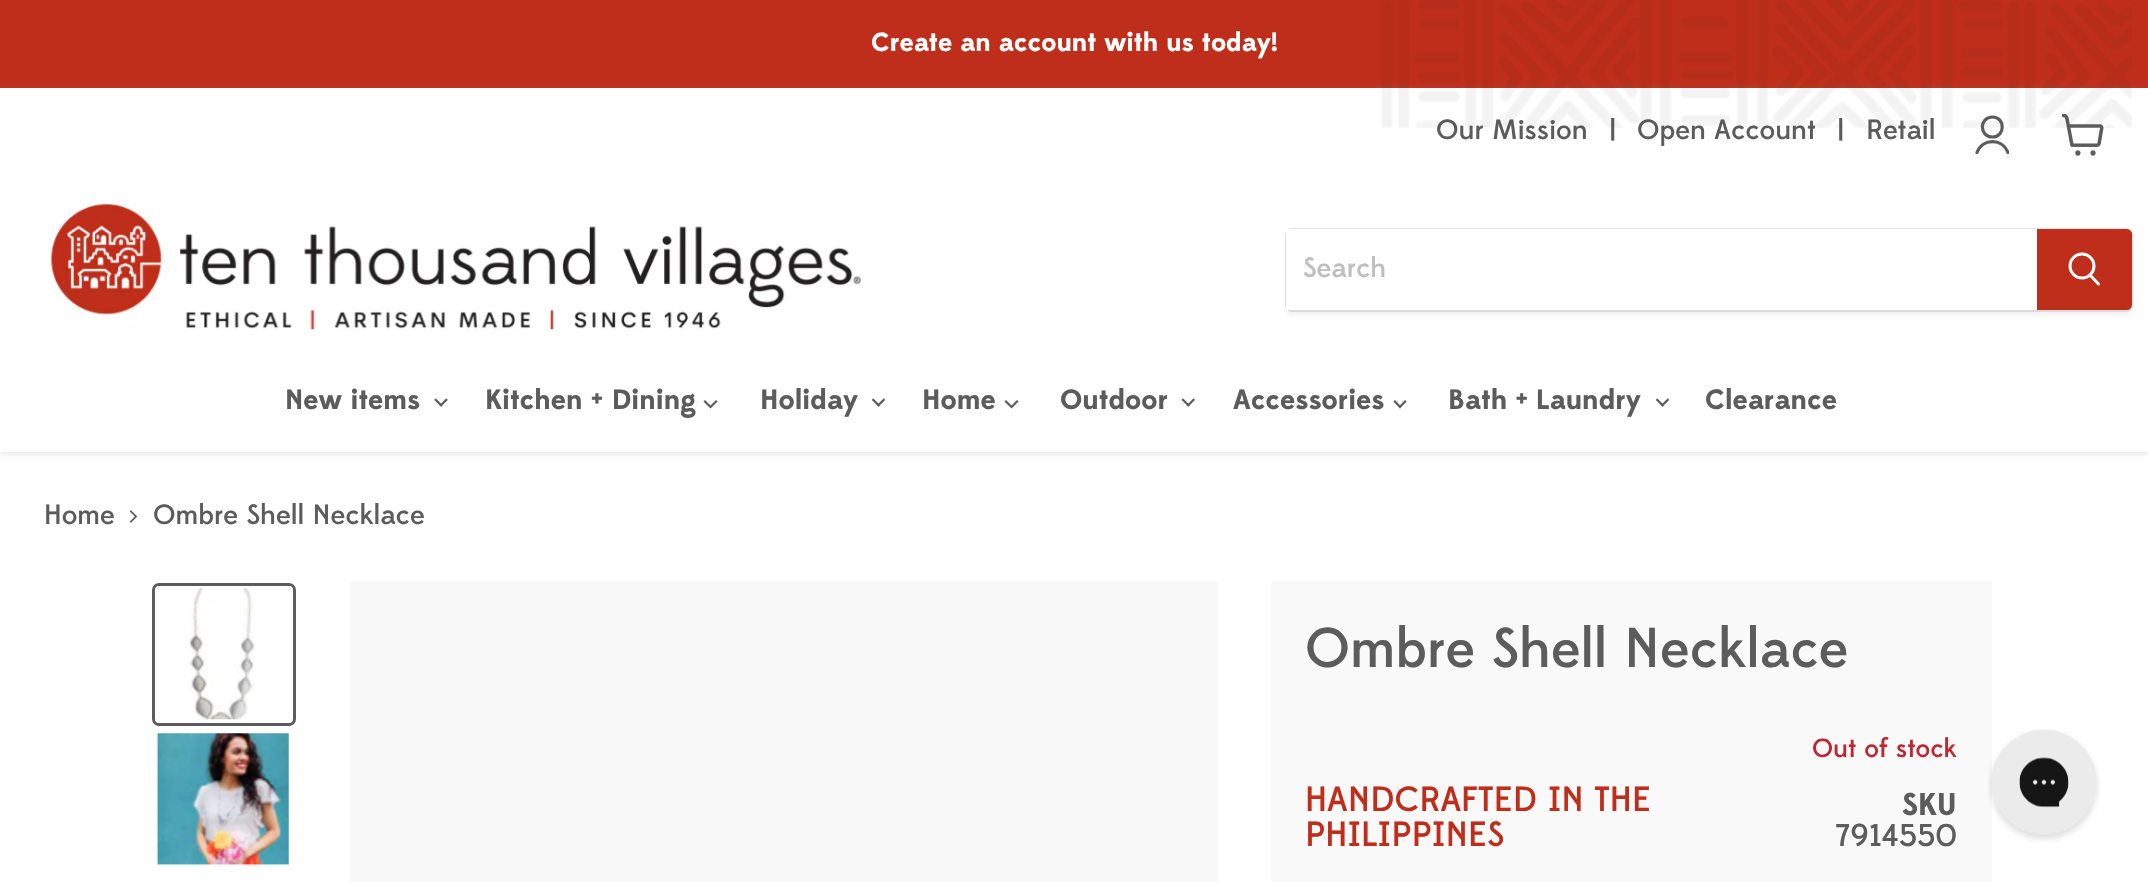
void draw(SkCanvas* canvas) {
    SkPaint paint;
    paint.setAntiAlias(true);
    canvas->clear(0xFFFFFFFF);
    paint.setColor(0xFFBF2E1A);
    canvas->drawRect(SkRect::MakeXYWH(0, 0, 2148, 88), paint);
    SkFont font1(fontMgr->matchFamilyStyle("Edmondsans", SkFontStyle::Bold()), 26.25f);
    font1.setSubpixel(true);
    paint.setColor(0xFFFFFFFF);
    canvas->drawString("Create an account with us today!", 871, 51, font1, paint);
    paint.setColor(0x40808080);
    paint.setMaskFilter(SkMaskFilter::MakeBlur(kNormal_SkBlurStyle, 3.5f));
    canvas->drawRect(SkRect::MakeXYWH(0, 89, 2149, 364), paint);
    paint.setMaskFilter(nullptr);
    paint.setColor(0xFFFFFFFF);
    canvas->drawRect(SkRect::MakeXYWH(0, 88, 2148, 364), paint);
    SkFont font2(fontMgr->matchFamilyStyle("Edmondsans", SkFontStyle(500, SkFontStyle::kNormal_Width, SkFontStyle::kUpright_Slant)), 28);
    font2.setSubpixel(true);
    paint.setColor(0xFF5C5C5C);
    canvas->drawString("Our Mission", 1436, 139, font2, paint);
    canvas->drawString("|", 1609, 139, font2, paint);
    canvas->drawString("Open Account", 1637, 139, font2, paint);
    canvas->drawString("|", 1837, 139, font2, paint);
    canvas->drawString("Retail", 1866, 139, font2, paint);
    canvas->drawImageRect(SkImages::DeferredFromEncodedData(SkData::MakeFromFileName("img1.png")), SkRect::MakeXYWH(1381, 0, 751, 128), SkSamplingOptions());
    paint.setStyle(SkPaint::kStroke_Style);
    paint.setStrokeWidth(3.2f);
    paint.setStrokeCap(SkPaint::kRound_Cap);
    paint.setStrokeJoin(SkPaint::kRound_Join);
    canvas->drawPath(SkPathBuilder().moveTo(1992.5f, 137).cubicTo(2005.5f, 137, 2005.5f, 117, 1992.5f, 117).cubicTo(1979, 117, 1979, 137, 1992.5f, 137).close().detach(), paint);
    canvas->save();
    canvas->clipRect(SkRect::MakeXYWH(1974, 114, 35, 40));
    canvas->drawPath(SkPathBuilder().moveTo(2008, 152.5f).cubicTo(2002.5f, 138, 1982.5f, 138, 1977, 152.5f).detach(), paint);
    canvas->restore();
    canvas->drawImageRect(SkImages::DeferredFromEncodedData(SkData::MakeFromFileName("img2.png")), SkRect::MakeXYWH(2062, 114, 42, 42), SkSamplingOptions());
    canvas->drawImageRect(SkImages::DeferredFromEncodedData(SkData::MakeFromFileName("img3.png")), SkRect::MakeXYWH(50, 203, 811, 127), SkSamplingOptions());
    paint.setStyle(SkPaint::kFill_Style);
    paint.setColor(0x1C808080);
    paint.setMaskFilter(SkMaskFilter::MakeBlur(kNormal_SkBlurStyle, 2.5f));
    canvas->drawRoundRect(SkRect::MakeXYWH(1285, 231, 848, 84), 7, 7, paint);
    paint.setMaskFilter(nullptr);
    paint.setStyle(SkPaint::kStroke_Style);
    paint.setStrokeWidth(2);
    paint.setStrokeCap(SkPaint::kButt_Cap);
    paint.setStrokeJoin(SkPaint::kMiter_Join);
    paint.setColor(0x33808080);
    canvas->drawRoundRect(SkRect::MakeXYWH(1286, 229, 846, 82), 6, 6, paint);
    paint.setStyle(SkPaint::kFill_Style);
    paint.setColor(0xFFFFFFFF);
    canvas->drawRect(SkRect::MakeXYWH(1286, 229, 751, 81), paint);
    paint.setColor(0xFFBEBEBE);
    canvas->drawString("Search", 1303, 277, font2, paint);
    paint.setColor(0xFFBF2E1A);
    canvas->drawPath(SkPathBuilder().moveTo(2038, 230).lineTo(2127, 230).cubicTo(2129, 230, 2131, 232, 2131, 234).lineTo(2131, 305).cubicTo(2131, 307, 2129, 309, 2127, 309).lineTo(2038, 309).close().detach(), paint);
    paint.setStyle(SkPaint::kStroke_Style);
    canvas->drawPath(SkPathBuilder().moveTo(2038, 230).lineTo(2127, 230).cubicTo(2129, 230, 2131, 232, 2131, 234).lineTo(2131, 305).cubicTo(2131, 307, 2129, 309, 2127, 309).lineTo(2038, 309).close().detach(), paint);
    paint.setStrokeWidth(3);
    paint.setStrokeCap(SkPaint::kRound_Cap);
    paint.setColor(0xFFFFFFFF);
    canvas->drawPath(SkPathBuilder().moveTo(2098.5f, 284).lineTo(2090.5f, 275.5f).detach(), paint);
    paint.setStrokeCap(SkPaint::kButt_Cap);
    canvas->drawCircle(2082, 266, 12, paint);
    SkFont font3(fontMgr->matchFamilyStyle("Edmondsans", SkFontStyle::Bold()), 28);
    font3.setSubpixel(true);
    paint.setStyle(SkPaint::kFill_Style);
    paint.setColor(0xFF5C5C5C);
    canvas->drawString("New items", 285, 409, font3, paint);
    canvas->drawImageRect(SkImages::DeferredFromEncodedData(SkData::MakeFromFileName("img4.png")), SkRect::MakeXYWH(434, 398, 14, 9), SkSamplingOptions());
    canvas->drawString("Kitchen + Dining", 485, 409, font3, paint);
    paint.setStyle(SkPaint::kStroke_Style);
    paint.setStrokeWidth(2.2f);
    paint.setStrokeCap(SkPaint::kSquare_Cap);
    canvas->drawPath(SkPathBuilder().moveTo(710.5f, 407).lineTo(716, 401.5f).moveTo(710.5f, 407).lineTo(705, 401.5f).detach(), paint);
    paint.setStyle(SkPaint::kFill_Style);
    canvas->drawString("Holiday", 760, 409, font3, paint);
    canvas->drawImageRect(SkImages::DeferredFromEncodedData(SkData::MakeFromFileName("img5.png")), SkRect::MakeXYWH(872, 398, 14, 9), SkSamplingOptions());
    canvas->drawString("Home", 922, 409, font3, paint);
    paint.setStyle(SkPaint::kStroke_Style);
    canvas->drawPath(SkPathBuilder().moveTo(1011.5f, 407).lineTo(1017, 401.5f).moveTo(1011.5f, 407).lineTo(1006, 401.5f).detach(), paint);
    paint.setStyle(SkPaint::kFill_Style);
    canvas->drawString("Outdoor", 1060, 409, font3, paint);
    canvas->drawImageRect(SkImages::DeferredFromEncodedData(SkData::MakeFromFileName("img6.png")), SkRect::MakeXYWH(1181, 398, 14, 9), SkSamplingOptions());
    canvas->drawString("Accessories", 1233, 409, font3, paint);
    paint.setStyle(SkPaint::kStroke_Style);
    canvas->drawPath(SkPathBuilder().moveTo(1400, 407).lineTo(1405, 401.5f).moveTo(1400, 407).lineTo(1395, 401.5f).detach(), paint);
    paint.setStyle(SkPaint::kFill_Style);
    canvas->drawString("Bath + Laundry", 1448, 409, font3, paint);
    canvas->drawImageRect(SkImages::DeferredFromEncodedData(SkData::MakeFromFileName("img5.png")), SkRect::MakeXYWH(1656, 398, 14, 9), SkSamplingOptions());
    canvas->drawString("Clearance", 1705, 409, font3, paint);
    canvas->drawString("Home", 44, 524, font2, paint);
    canvas->drawImageRect(SkImages::DeferredFromEncodedData(SkData::MakeFromFileName("img7.png")), SkRect::MakeXYWH(129, 510, 9, 13), SkSamplingOptions());
    canvas->drawString("Ombre Shell Necklace", 153, 524, font2, paint);
    paint.setStyle(SkPaint::kStroke_Style);
    paint.setStrokeWidth(3);
    paint.setStrokeCap(SkPaint::kButt_Cap);
    canvas->drawRoundRect(SkRect::MakeXYWH(153.5f, 584.5f, 141, 140), 5.5f, 5.5f, paint);
    canvas->drawImageRect(SkImages::DeferredFromEncodedData(SkData::MakeFromFileName("img8.png")), SkRect::MakeXYWH(188, 587, 67, 133), SkSamplingOptions());
    canvas->drawImageRect(SkImages::DeferredFromEncodedData(SkData::MakeFromFileName("img9.png")), SkRect::MakeXYWH(156, 733, 133, 133), SkSamplingOptions());
    paint.setStyle(SkPaint::kFill_Style);
    paint.setColor(0xFFF8F8F8);
    canvas->drawRect(SkRect::MakeXYWH(350, 581, 868, 301), paint);
    paint.setColor(0xFFF9F9F9);
    canvas->drawRect(SkRect::MakeXYWH(1271, 581, 721, 301), paint);
    SkFont font4(fontMgr->matchFamilyStyle("Edmondsans", SkFontStyle(500, SkFontStyle::kNormal_Width, SkFontStyle::kUpright_Slant)), 56);
    font4.setSubpixel(true);
    paint.setColor(0xFF5C5C5C);
    canvas->drawString("Ombre Shell Necklace", 1305, 667, font4, paint);
    SkFont font5(fontMgr->matchFamilyStyle("Edmondsans", SkFontStyle(500, SkFontStyle::kNormal_Width, SkFontStyle::kUpright_Slant)), 35);
    font5.setSubpixel(true);
    paint.setColor(0xFFBF2E1A);
    canvas->drawString("HANDCRAFTED IN THE", 1305, 811, font5, paint);
    canvas->drawString("PHILIPPINES", 1305, 846, font5, paint);
    SkFont font6(fontMgr->matchFamilyStyle("Edmondsans", SkFontStyle(500, SkFontStyle::kNormal_Width, SkFontStyle::kUpright_Slant)), 26.25f);
    font6.setSubpixel(true);
    paint.setColor(0xFFBF262F);
    canvas->drawString("Out of stock", 1812, 757, font6, paint);
    SkFont font7(fontMgr->matchFamilyStyle("Edmondsans", SkFontStyle::Bold()), 31.5f);
    font7.setSubpixel(true);
    paint.setColor(0xFF5C5C5C);
    canvas->drawString("SKU", 1902, 815, font7, paint);
    SkFont font8(fontMgr->matchFamilyStyle("Edmondsans", SkFontStyle(500, SkFontStyle::kNormal_Width, SkFontStyle::kUpright_Slant)), 31.5f);
    font8.setSubpixel(true);
    canvas->drawString("7914550", 1835, 846, font8, paint);
    canvas->drawImageRect(SkImages::DeferredFromEncodedData(SkData::MakeFromFileName("img10.png")), SkRect::MakeXYWH(1988, 729, 112, 113), SkSamplingOptions());
}
